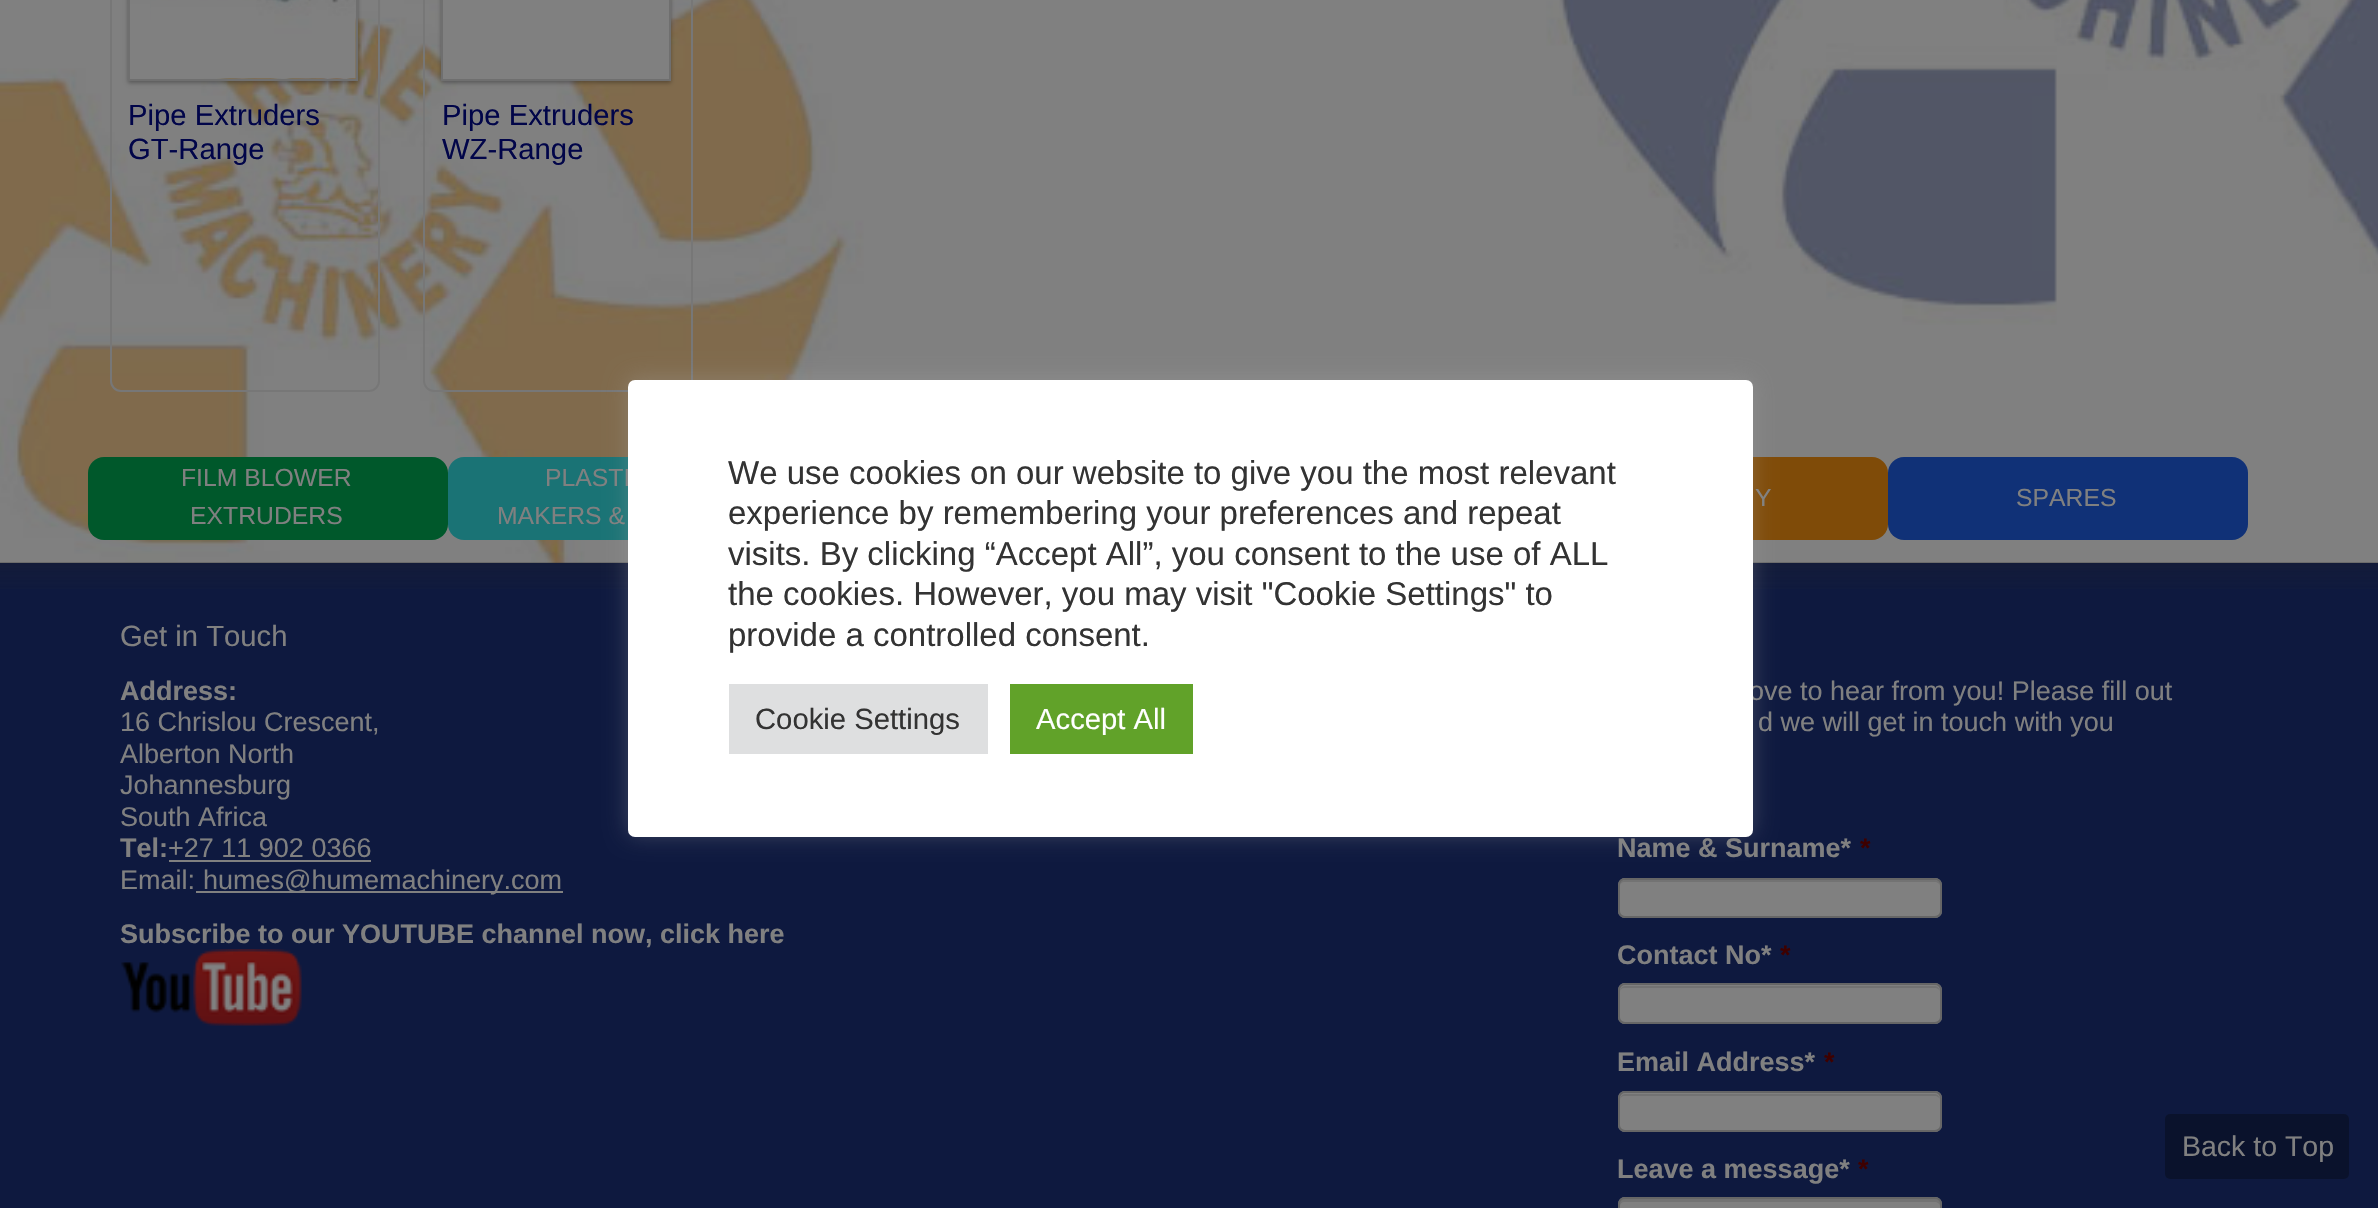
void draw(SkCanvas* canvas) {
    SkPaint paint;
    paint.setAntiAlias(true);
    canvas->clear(0xFFFFFFFF);
    canvas->drawImageRect(SkImages::DeferredFromEncodedData(SkData::MakeFromFileName("img1.png")), SkRect::MakeXYWH(0, 0, 2378, 563), SkSamplingOptions());
    paint.setStyle(SkPaint::kStroke_Style);
    paint.setStrokeWidth(2);
    paint.setColor(0xFF777777);
    canvas->drawRoundRect(SkRect::MakeXYWH(111, -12, 268, 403), 10, 10, paint);
    canvas->save();
    canvas->clipPath(SkPathBuilder(SkPathFillType::kEvenOdd).moveTo(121, 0).lineTo(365, 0).lineTo(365, 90).lineTo(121, 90).close().moveTo(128, -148).lineTo(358, -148).lineTo(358, 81).lineTo(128, 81).close().detach(), true);
    paint.setStyle(SkPaint::kFill_Style);
    paint.setColor(0x4D000000);
    paint.setMaskFilter(SkMaskFilter::MakeBlur(kNormal_SkBlurStyle, 2));
    canvas->drawRect(SkRect::MakeXYWH(128, -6, 230, 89), paint);
    paint.setMaskFilter(nullptr);
    canvas->restore();
    paint.setStyle(SkPaint::kStroke_Style);
    paint.setColor(0xFF6F6F6F);
    canvas->drawRect(SkRect::MakeXYWH(129, -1, 228, 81), paint);
    canvas->drawImageRect(SkImages::DeferredFromEncodedData(SkData::MakeFromFileName("img2.png")), SkRect::MakeXYWH(151, 0, 205, 79), SkSamplingOptions());
    SkFont font1(fontMgr->matchFamilyStyle("Liberation Sans", SkFontStyle::Normal()), 29.25f);
    font1.setSubpixel(true);
    paint.setStyle(SkPaint::kFill_Style);
    paint.setColor(0xFF010549);
    canvas->drawString("Pipe Extruders", 128, 125, font1, paint);
    canvas->drawString("GT-Range", 128, 159, font1, paint);
    paint.setStyle(SkPaint::kStroke_Style);
    paint.setColor(0xFF777777);
    canvas->drawRoundRect(SkRect::MakeXYWH(424, -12, 268, 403), 10, 10, paint);
    paint.setStyle(SkPaint::kFill_Style);
    paint.setColor(0x4D000000);
    paint.setMaskFilter(SkMaskFilter::MakeBlur(kNormal_SkBlurStyle, 2));
    canvas->drawRect(SkRect::MakeXYWH(441, -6, 230, 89), paint);
    paint.setMaskFilter(nullptr);
    paint.setStyle(SkPaint::kStroke_Style);
    paint.setColor(0xFF6F6F6F);
    canvas->drawRect(SkRect::MakeXYWH(442, -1, 228, 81), paint);
    paint.setStyle(SkPaint::kFill_Style);
    paint.setColor(0xFF808080);
    canvas->drawRect(SkRect::MakeXYWH(443, 0, 226, 79), paint);
    paint.setColor(0xFF010549);
    canvas->drawString("Pipe Extruders", 442, 125, font1, paint);
    canvas->drawString("WZ-Range", 442, 159, font1, paint);
    paint.setColor(0xFF00582B);
    canvas->drawRoundRect(SkRect::MakeXYWH(88, 457, 360, 83), 16, 16, paint);
    SkFont font2(fontMgr->matchFamilyStyle("Liberation Sans", SkFontStyle::Normal()), 24.75f);
    font2.setSubpixel(true);
    paint.setColor(0xFF808080);
    canvas->drawString("FILM BLOWER", 181, 486, font2, paint);
    canvas->drawString("EXTRUDERS", 190, 524, font2, paint);
    paint.setColor(0xFF1A7375);
    canvas->drawRoundRect(SkRect::MakeXYWH(448, 457, 360, 83), 16, 16, paint);
    paint.setColor(0xFF808080);
    canvas->drawString("PLASTI", 545, 486, font2, paint);
    canvas->drawString("MAKERS &", 497, 524, font2, paint);
    paint.setColor(0xFF7F4B08);
    canvas->drawRoundRect(SkRect::MakeXYWH(1528, 457, 360, 83), 16, 16, paint);
    paint.setColor(0xFF808080);
    canvas->drawString("Y", 1755, 506, font2, paint);
    paint.setColor(0xFF103177);
    canvas->drawRoundRect(SkRect::MakeXYWH(1888, 457, 360, 83), 16, 16, paint);
    paint.setColor(0xFF808080);
    canvas->drawString("SPARES", 2016, 506, font2, paint);
    paint.setColor(0xFF0E193F);
    canvas->drawRect(SkRect::MakeXYWH(0, 563, 2378, 645), paint);
    canvas->drawImageRect(SkImages::DeferredFromEncodedData(SkData::MakeFromFileName("img3.png")), SkRect::MakeXYWH(0, 562, 2378, 27), SkSamplingOptions());
    paint.setColor(0xFF808080);
    canvas->drawString("Get in Touch", 120, 646, font1, paint);
    SkFont font3(fontMgr->matchFamilyStyle("Liberation Sans", SkFontStyle::Bold()), 27);
    font3.setSubpixel(true);
    canvas->drawString("Address:", 120, 700, font3, paint);
    SkFont font4(fontMgr->matchFamilyStyle("Liberation Sans", SkFontStyle::Normal()), 27);
    font4.setSubpixel(true);
    canvas->drawString("16 Chrislou Crescent,", 120, 731, font4, paint);
    canvas->drawString("Alberton North", 120, 763, font4, paint);
    canvas->drawString("Johannesburg", 120, 794, font4, paint);
    canvas->drawString("South Africa", 120, 826, font4, paint);
    canvas->drawString("Tel:", 120, 857, font3, paint);
    canvas->drawString("+27 11 902 0366", 168, 857, font4, paint);
    canvas->drawRect(SkRect::MakeXYWH(169, 860, 202, 2), paint);
    canvas->drawString("Email:", 120, 889, font4, paint);
    canvas->drawRect(SkRect::MakeXYWH(196, 891, 367, 2), paint);
    canvas->drawString("humes@humemachinery.com", 203, 889, font4, paint);
    canvas->drawString("Subscribe to our YOUTUBE channel now, click here", 120, 943, font3, paint);
    canvas->drawImageRect(SkImages::DeferredFromEncodedData(SkData::MakeFromFileName("img4.png")), SkRect::MakeXYWH(121, 949, 181, 77), SkSamplingOptions());
    canvas->drawString("ove to hear from you! Please fill out", 1749, 700, font4, paint);
    canvas->drawString("d we will get in touch with you", 1758, 731, font4, paint);
    canvas->drawString("Name & Surname*", 1617, 857, font3, paint);
    paint.setColor(0xFF3D0000);
    canvas->drawString("*", 1860, 857, font3, paint);
    paint.setColor(0xFF808080);
    canvas->drawRoundRect(SkRect::MakeXYWH(1618, 878, 324, 40), 7, 7, paint);
    paint.setColor(0xFF737373);
    canvas->drawPath(SkPathBuilder().moveTo(1624, 882).lineTo(1935, 882).cubicTo(1937, 882, 1940, 884, 1940, 886).cubicTo(1940, 883, 1938, 880, 1935, 880).lineTo(1625, 880).cubicTo(1622, 880, 1620, 883, 1620, 886).cubicTo(1620, 884, 1622, 882, 1624, 882).close().detach(), paint);
    paint.setStyle(SkPaint::kStroke_Style);
    paint.setColor(0xFF666666);
    canvas->drawRoundRect(SkRect::MakeXYWH(1619, 879, 322, 38), 6, 6, paint);
    paint.setStyle(SkPaint::kFill_Style);
    paint.setColor(0xFF808080);
    canvas->drawString("Contact No*", 1617, 964, font3, paint);
    paint.setColor(0xFF3D0000);
    canvas->drawString("*", 1780, 964, font3, paint);
    paint.setColor(0xFF808080);
    canvas->drawRoundRect(SkRect::MakeXYWH(1618, 983, 324, 41), 7, 7, paint);
    paint.setColor(0xFF737373);
    canvas->drawPath(SkPathBuilder().moveTo(1624, 988).lineTo(1935, 988).cubicTo(1937, 988, 1940, 990, 1940, 992).cubicTo(1940, 989, 1938, 986, 1935, 986).lineTo(1625, 986).cubicTo(1622, 986, 1620, 989, 1620, 992).cubicTo(1620, 990, 1622, 988, 1624, 988).close().detach(), paint);
    paint.setStyle(SkPaint::kStroke_Style);
    paint.setColor(0xFF666666);
    canvas->drawRoundRect(SkRect::MakeXYWH(1619, 984, 322, 39), 6, 6, paint);
    paint.setStyle(SkPaint::kFill_Style);
    paint.setColor(0xFF808080);
    canvas->drawString("Email Address*", 1617, 1071, font3, paint);
    paint.setColor(0xFF3D0000);
    canvas->drawString("*", 1824, 1071, font3, paint);
    paint.setColor(0xFF808080);
    canvas->drawRoundRect(SkRect::MakeXYWH(1618, 1091, 324, 41), 7, 7, paint);
    paint.setColor(0xFF737373);
    canvas->drawPath(SkPathBuilder().moveTo(1624, 1096).lineTo(1935, 1096).cubicTo(1937, 1096, 1940, 1098, 1940, 1100).cubicTo(1940, 1097, 1938, 1094, 1935, 1094).lineTo(1625, 1094).cubicTo(1622, 1094, 1620, 1097, 1620, 1100).cubicTo(1620, 1098, 1622, 1096, 1624, 1096).close().detach(), paint);
    paint.setStyle(SkPaint::kStroke_Style);
    paint.setColor(0xFF666666);
    canvas->drawRoundRect(SkRect::MakeXYWH(1619, 1092, 322, 39), 6, 6, paint);
    paint.setStyle(SkPaint::kFill_Style);
    paint.setColor(0xFF808080);
    canvas->drawString("Leave a message*", 1617, 1178, font3, paint);
    paint.setColor(0xFF3D0000);
    canvas->drawString("*", 1858, 1178, font3, paint);
    paint.setColor(0xFF808080);
    canvas->drawRoundRect(SkRect::MakeXYWH(1618, 1197, 324, 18), 7, 7, paint);
    paint.setColor(0xFF737373);
    canvas->drawPath(SkPathBuilder().moveTo(1624, 1202).lineTo(1935, 1202).cubicTo(1937, 1202, 1940, 1204, 1940, 1206).lineTo(1940, 1204).cubicTo(1940, 1201, 1938, 1199, 1935, 1199).lineTo(1625, 1199).cubicTo(1622, 1199, 1620, 1201, 1620, 1204).lineTo(1620, 1206).cubicTo(1620, 1204, 1622, 1202, 1624, 1202).close().detach(), paint);
    paint.setStyle(SkPaint::kStroke_Style);
    paint.setColor(0xFF666666);
    canvas->drawRoundRect(SkRect::MakeXYWH(1619, 1198, 322, 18), 6, 6, paint);
    paint.setStyle(SkPaint::kFill_Style);
    paint.setColor(0x4DACABAB);
    paint.setMaskFilter(SkMaskFilter::MakeBlur(kNormal_SkBlurStyle, 11));
    canvas->drawRoundRect(SkRect::MakeXYWH(628, 378, 1125, 457), 7, 7, paint);
    paint.setMaskFilter(nullptr);
    paint.setColor(0xFFFFFFFF);
    canvas->drawRoundRect(SkRect::MakeXYWH(628, 380, 1125, 457), 7, 7, paint);
    SkFont font5(fontMgr->matchFamilyStyle("Liberation Sans", SkFontStyle::Normal()), 33);
    font5.setSubpixel(true);
    paint.setColor(0xFF333333);
    canvas->drawString("We use cookies on our website to give you the most relevant", 728, 484, font5, paint);
    canvas->drawString("experience by remembering your preferences and repeat", 728, 524, font5, paint);
    canvas->drawString("visits. By clicking “Accept All”, you consent to the use of ALL", 728, 565, font5, paint);
    canvas->drawString("the cookies. However, you may visit \"Cookie Settings\" to", 728, 605, font5, paint);
    canvas->drawString("provide a controlled consent.", 728, 646, font5, paint);
    paint.setColor(0xFFDEDFE0);
    canvas->drawRect(SkRect::MakeXYWH(729, 684, 259, 70), paint);
    paint.setColor(0xFF333333);
    canvas->drawString("Cookie Settings", 755, 729, font1, paint);
    paint.setColor(0xFF61A229);
    canvas->drawRect(SkRect::MakeXYWH(1010, 684, 183, 70), paint);
    paint.setColor(0xFFFFFFFF);
    canvas->drawString("Accept All", 1036, 729, font1, paint);
    paint.setColor(0xFF0A122C);
    canvas->drawRoundRect(SkRect::MakeXYWH(2165, 1114, 184, 65), 5, 5, paint);
    SkFont font6(fontMgr->matchFamilyStyle("Liberation Sans", SkFontStyle::Normal()), 28.5f);
    font6.setSubpixel(true);
    paint.setColor(0xFF808080);
    canvas->drawString("Back to Top", 2182, 1156, font6, paint);
}
